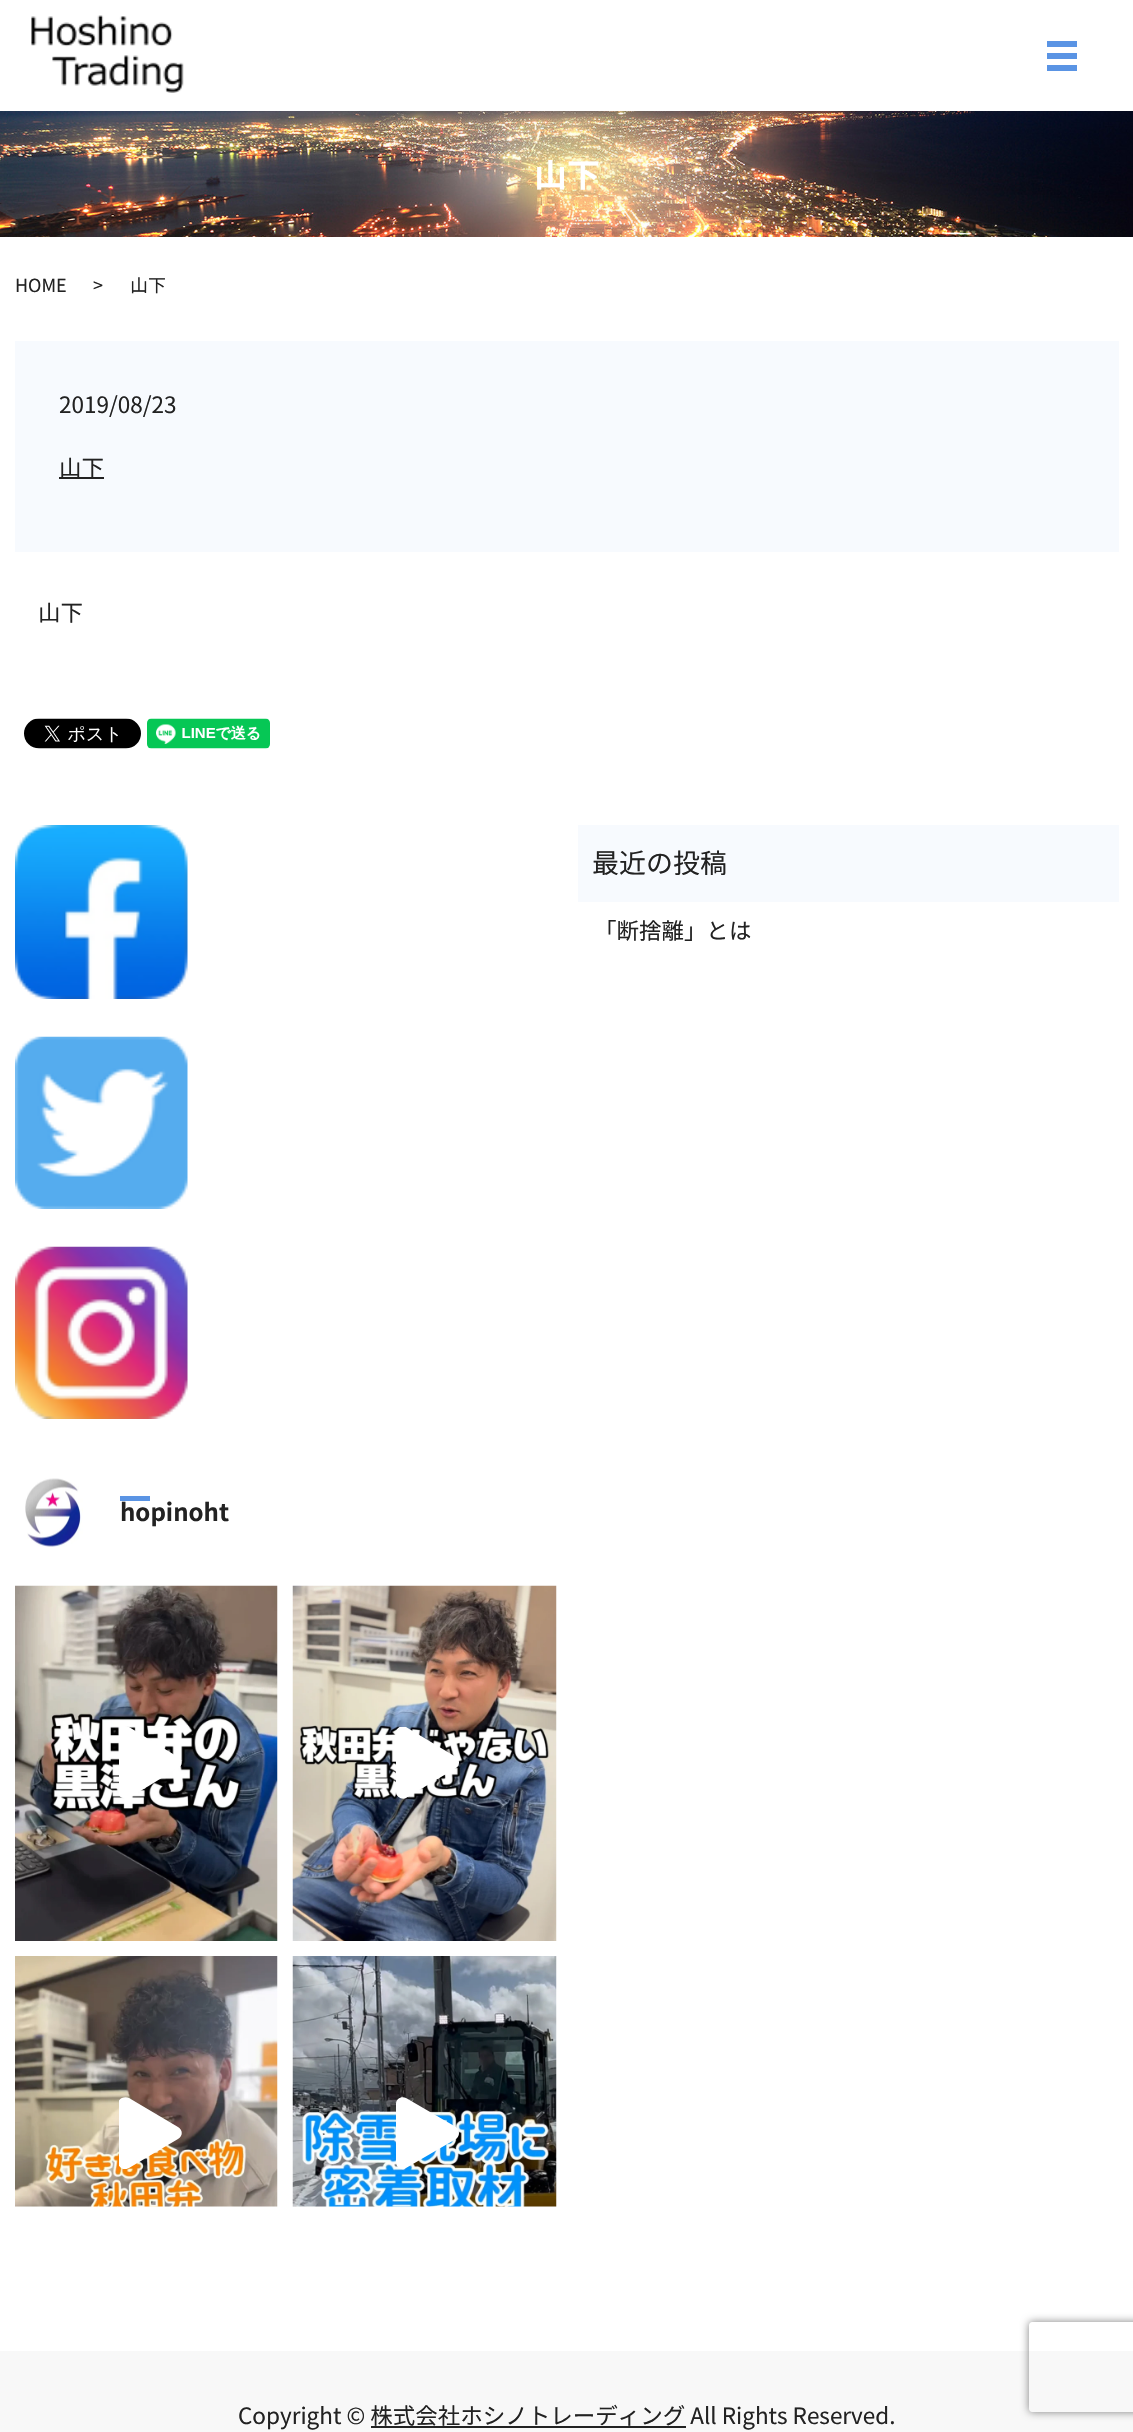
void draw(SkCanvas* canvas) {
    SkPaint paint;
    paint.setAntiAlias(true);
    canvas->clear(0xFFFFFFFF);
    canvas->drawImageRect(SkImages::DeferredFromEncodedData(SkData::MakeFromFileName("img1.png")), SkRect::MakeXYWH(31, 15, 153, 78), SkSamplingOptions());
    paint.setColor(0xFF5A94E4);
    canvas->drawRect(SkRect::MakeXYWH(1047, 41, 30, 6), paint);
    canvas->drawRect(SkRect::MakeXYWH(1047, 53, 30, 6), paint);
    canvas->drawRect(SkRect::MakeXYWH(1047, 65, 30, 6), paint);
    canvas->drawImageRect(SkImages::DeferredFromEncodedData(SkData::MakeFromFileName("img2.png")), SkRect::MakeXYWH(0, 111, 1133, 126), SkSamplingOptions());
    SkFont font1(fontMgr->matchFamilyStyle("Noto Sans JP", SkFontStyle::Bold()), 33);
    font1.setSubpixel(true);
    paint.setColor(0xFFFFFFFF);
    canvas->drawString("山下", 534, 187, font1, paint);
    SkFont font2(fontMgr->matchFamilyStyle("Noto Sans JP", SkFontStyle::Normal()), 18);
    font2.setSubpixel(true);
    paint.setColor(0xFF222222);
    canvas->drawString("HOME", 15, 292, font2, paint);
    canvas->drawString(">", 93, 292, font2, paint);
    canvas->drawString("山下", 130, 292, font2, paint);
    paint.setColor(0xFFF7FAFE);
    canvas->drawRect(SkRect::MakeXYWH(15, 341, 1104, 211), paint);
    SkFont font3(fontMgr->matchFamilyStyle("Noto Sans JP", SkFontStyle::Normal()), 22.5f);
    font3.setSubpixel(true);
    paint.setColor(0xFF222222);
    canvas->drawString("2019/08/23", 59, 413, font3, paint);
    canvas->drawRect(SkRect::MakeXYWH(59, 477, 45, 2), paint);
    canvas->drawString("山下", 59, 476, font3, paint);
    canvas->drawString("山下", 38, 621, font3, paint);
    canvas->drawImageRect(SkImages::DeferredFromEncodedData(SkData::MakeFromFileName("img3.png")), SkRect::MakeXYWH(24, 718, 117, 31), SkSamplingOptions());
    canvas->drawImageRect(SkImages::DeferredFromEncodedData(SkData::MakeFromFileName("img4.png")), SkRect::MakeXYWH(147, 718, 123, 31), SkSamplingOptions());
    paint.setColor(0xFFF7FAFE);
    canvas->drawRect(SkRect::MakeXYWH(578, 825, 541, 77), paint);
    SkFont font4(fontMgr->matchFamilyStyle("Noto Sans JP", SkFontStyle::Normal()), 27);
    font4.setSubpixel(true);
    paint.setColor(0xFF222222);
    canvas->drawString("最近の投稿", 592, 873, font4, paint);
    canvas->drawString("「断捨離」とは", 594, 939, font3, paint);
    canvas->drawImageRect(SkImages::DeferredFromEncodedData(SkData::MakeFromFileName("img5.png")), SkRect::MakeXYWH(15, 825, 173, 174), SkSamplingOptions());
    canvas->drawImageRect(SkImages::DeferredFromEncodedData(SkData::MakeFromFileName("img6.png")), SkRect::MakeXYWH(15, 1036, 173, 173), SkSamplingOptions());
    canvas->drawImageRect(SkImages::DeferredFromEncodedData(SkData::MakeFromFileName("img7.png")), SkRect::MakeXYWH(15, 1246, 173, 173), SkSamplingOptions());
    canvas->drawImageRect(SkImages::DeferredFromEncodedData(SkData::MakeFromFileName("img8.png")), SkRect::MakeXYWH(25, 1478, 58, 69), SkSamplingOptions());
    paint.setColor(0xFF5A94E4);
    canvas->drawRect(SkRect::MakeXYWH(120, 1496, 30, 5), paint);
    SkFont font5(fontMgr->matchFamilyStyle("Noto Sans JP", SkFontStyle::Bold()), 24);
    font5.setSubpixel(true);
    paint.setColor(0xFF222222);
    canvas->drawString("hopinoht", 120, 1521, font5, paint);
    canvas->drawImageRect(SkImages::DeferredFromEncodedData(SkData::MakeFromFileName("img9.png")), SkRect::MakeXYWH(15, 1585, 263, 356), SkSamplingOptions());
    canvas->save();
    canvas->clipRect(SkRect::MakeXYWH(119, 1727, 63, 72));
    paint.setColor(0xFFFFFFFF);
    canvas->drawPath(SkPathBuilder().moveTo(178, 1757).lineTo(129, 1727).cubicTo(125, 1725, 118, 1727, 118, 1733).lineTo(118, 1792).cubicTo(118, 1797, 124, 1800, 129, 1798).lineTo(178, 1768).cubicTo(183, 1766, 183, 1759, 178, 1757).close().detach(), paint);
    canvas->restore();
    canvas->drawImageRect(SkImages::DeferredFromEncodedData(SkData::MakeFromFileName("img10.png")), SkRect::MakeXYWH(292, 1585, 265, 356), SkSamplingOptions());
    canvas->save();
    canvas->clipRect(SkRect::MakeXYWH(396, 1727, 63, 72));
    canvas->drawPath(SkPathBuilder().moveTo(456, 1757).lineTo(406, 1727).cubicTo(402, 1725, 396, 1727, 396, 1733).lineTo(396, 1792).cubicTo(396, 1797, 402, 1800, 406, 1798).lineTo(456, 1768).cubicTo(460, 1766, 460, 1759, 456, 1757).close().detach(), paint);
    canvas->restore();
    canvas->drawImageRect(SkImages::DeferredFromEncodedData(SkData::MakeFromFileName("img11.png")), SkRect::MakeXYWH(15, 1956, 263, 251), SkSamplingOptions());
    canvas->save();
    canvas->clipRect(SkRect::MakeXYWH(119, 2097, 63, 72));
    canvas->drawPath(SkPathBuilder().moveTo(178, 2127).lineTo(129, 2098).cubicTo(125, 2096, 118, 2098, 118, 2104).lineTo(118, 2162).cubicTo(118, 2168, 124, 2171, 129, 2168).lineTo(178, 2139).cubicTo(183, 2136, 183, 2130, 178, 2127).close().detach(), paint);
    canvas->restore();
    canvas->drawImageRect(SkImages::DeferredFromEncodedData(SkData::MakeFromFileName("img12.png")), SkRect::MakeXYWH(292, 1956, 265, 251), SkSamplingOptions());
    canvas->drawPath(SkPathBuilder().moveTo(456, 2127).lineTo(406, 2098).cubicTo(402, 2096, 396, 2098, 396, 2104).lineTo(396, 2162).cubicTo(396, 2168, 402, 2171, 406, 2168).lineTo(456, 2139).cubicTo(460, 2136, 460, 2130, 456, 2127).close().detach(), paint);
    paint.setColor(0xFFF8F8F8);
    canvas->drawRect(SkRect::MakeXYWH(0, 2351, 1133, 81), paint);
    paint.setColor(0xFF222222);
    canvas->drawString("Copyright © 株式会社ホシノトレーディング All Rights Reserved.", 238, 2424, font3, paint);
    canvas->drawRect(SkRect::MakeXYWH(371, 2426, 315, 2), paint);
    canvas->save();
    canvas->clipPath(SkPathBuilder(SkPathFillType::kEvenOdd).moveTo(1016, 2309).lineTo(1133, 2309).lineTo(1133, 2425).lineTo(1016, 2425).close().moveTo(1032, 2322).lineTo(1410, 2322).cubicTo(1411.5f, 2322, 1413, 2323.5f, 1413, 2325).lineTo(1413, 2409).cubicTo(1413, 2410.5f, 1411.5f, 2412, 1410, 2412).lineTo(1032, 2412).cubicTo(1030.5f, 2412, 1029, 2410.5f, 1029, 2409).lineTo(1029, 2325).cubicTo(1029, 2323.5f, 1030.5f, 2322, 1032, 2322).close().detach(), true);
    paint.setColor(0xFF808080);
    paint.setMaskFilter(SkMaskFilter::MakeBlur(kNormal_SkBlurStyle, 4));
    canvas->drawRoundRect(SkRect::MakeXYWH(1029, 2322, 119, 90), 3, 3, paint);
    paint.setMaskFilter(nullptr);
    canvas->restore();
}
